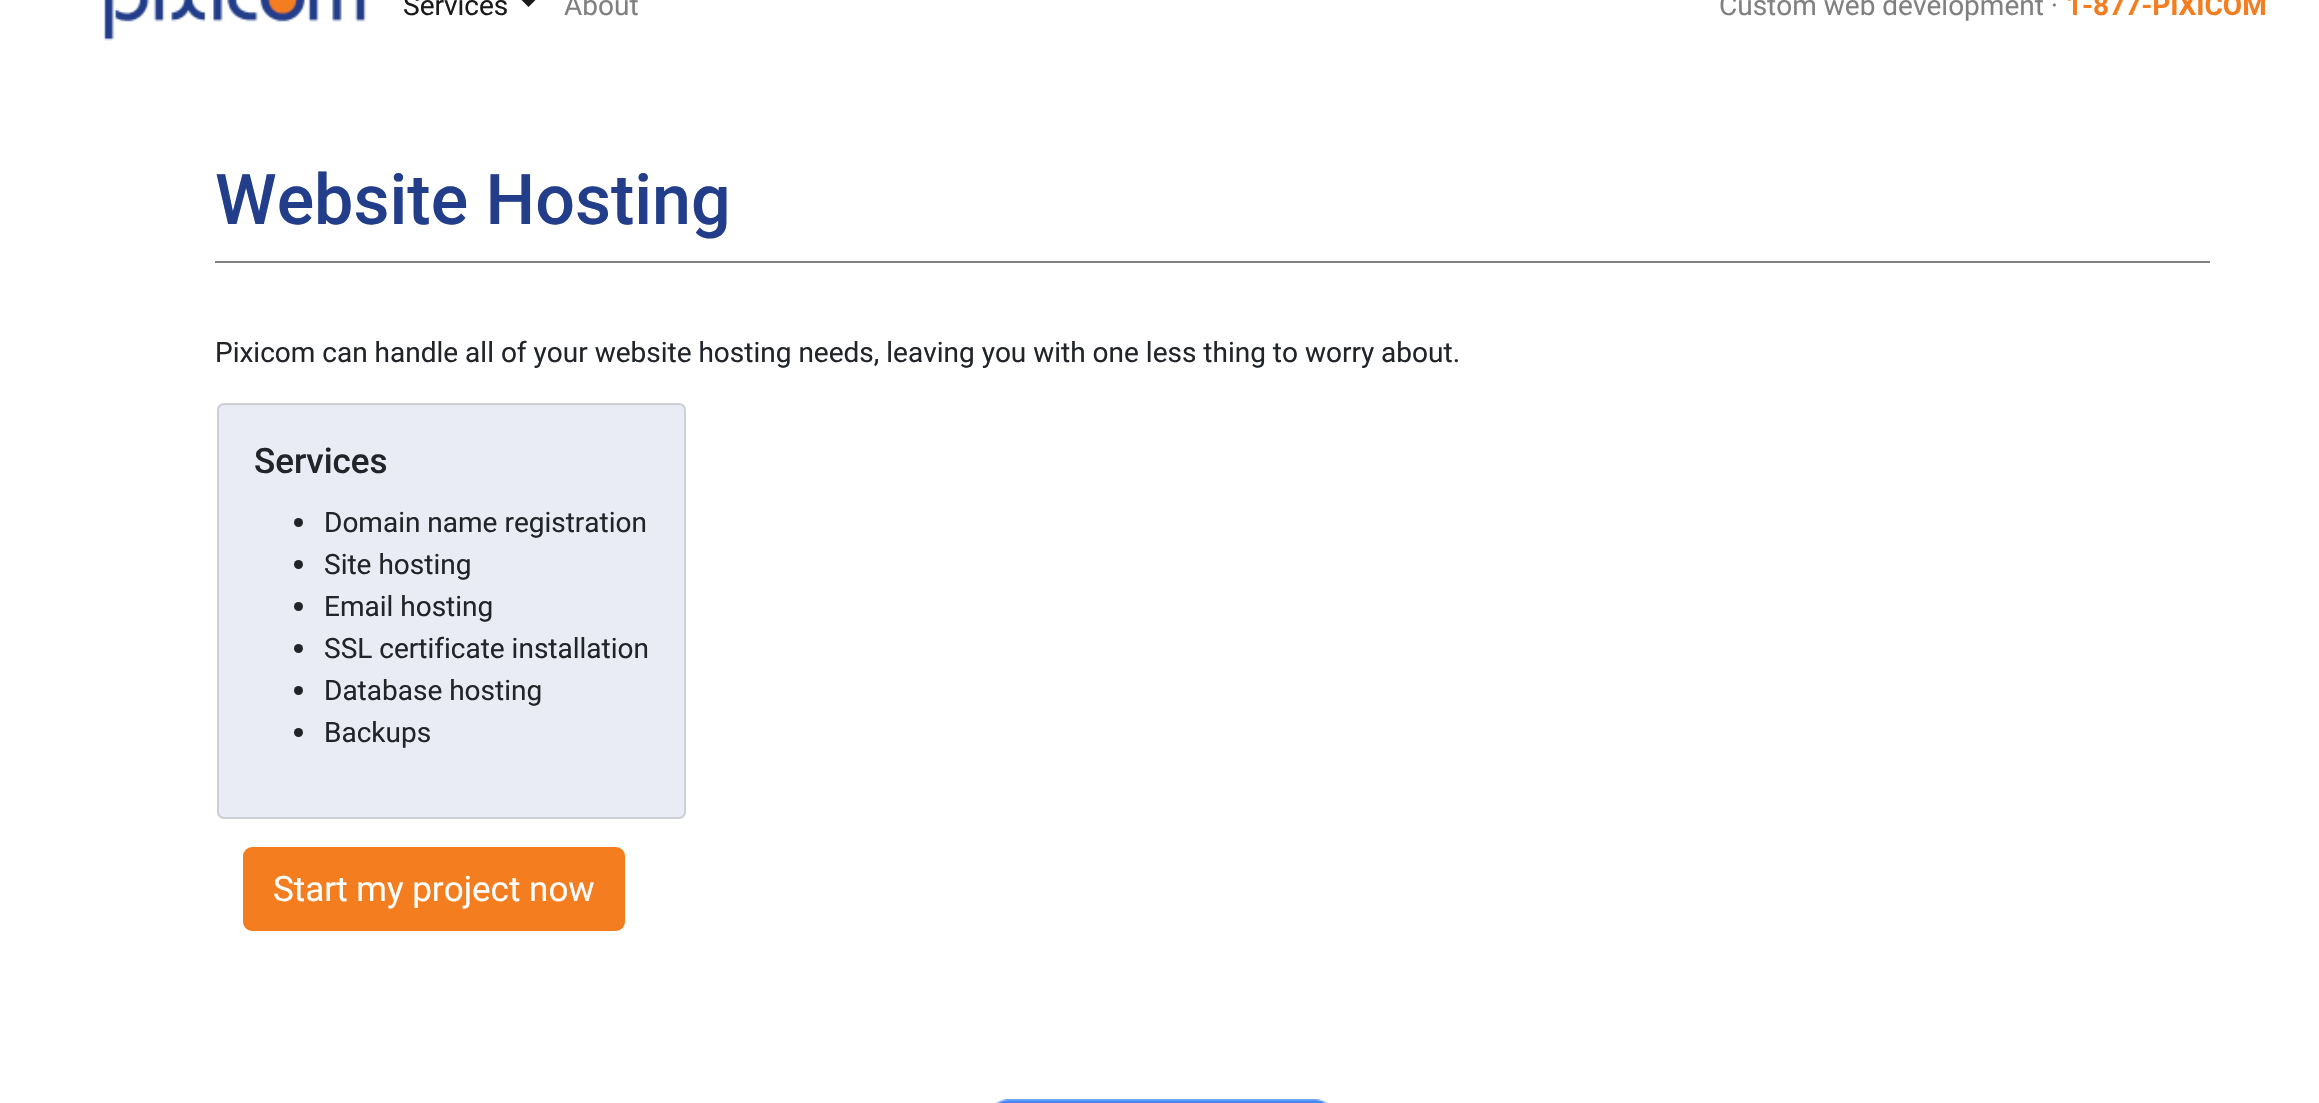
void draw(SkCanvas* canvas) {
    SkPaint paint;
    paint.setAntiAlias(true);
    canvas->clear(0xFFFFFFFF);
    canvas->drawImageRect(SkImages::DeferredFromEncodedData(SkData::MakeFromFileName("img1.png")), SkRect::MakeXYWH(103, 0, 264, 41), SkSamplingOptions());
    SkFont font1(fontMgr->matchFamilyStyle("Roboto", SkFontStyle::Normal()), 28);
    font1.setSubpixel(true);
    paint.setColor(0xFF1A1A1A);
    canvas->drawString("Services", 403, 15, font1, paint);
    canvas->drawPath(SkPathBuilder().moveTo(521.5f, 0).lineTo(535.5f, 0).lineTo(528.5f, 7).close().detach(), paint);
    paint.setColor(0xFF808080);
    canvas->drawString("About", 564, 15, font1, paint);
    canvas->drawString("Custom web development ·", 1719, 15, font1, paint);
    SkFont font2(fontMgr->matchFamilyStyle("Roboto", SkFontStyle::Bold()), 28);
    font2.setSubpixel(true);
    paint.setColor(0xFFF47D20);
    canvas->drawString("1-877-PIXICOM", 2066, 15, font2, paint);
    paint.setColor(0xFF808080);
    canvas->drawRect(SkRect::MakeXYWH(215, 261, 1995, 2), paint);
    SkFont font3(fontMgr->matchFamilyStyle("Roboto", SkFontStyle(500, SkFontStyle::kNormal_Width, SkFontStyle::kUpright_Slant)), 70);
    font3.setSubpixel(true);
    paint.setColor(0xFF223D8A);
    canvas->drawString("Website Hosting", 215, 224, font3, paint);
    paint.setColor(0xFF212529);
    canvas->drawString("Pixicom can handle all of your website hosting needs, leaving you with one less thing to worry about.", 215, 362, font1, paint);
    paint.setColor(0xFFE9ECF4);
    canvas->drawRoundRect(SkRect::MakeXYWH(217, 403, 469, 416), 7, 7, paint);
    paint.setStyle(SkPaint::kStroke_Style);
    paint.setStrokeWidth(2);
    paint.setColor(0x1F000000);
    canvas->drawRoundRect(SkRect::MakeXYWH(218, 404, 467, 414), 6, 6, paint);
    SkFont font4(fontMgr->matchFamilyStyle("Roboto", SkFontStyle(500, SkFontStyle::kNormal_Width, SkFontStyle::kUpright_Slant)), 35);
    font4.setSubpixel(true);
    paint.setStyle(SkPaint::kFill_Style);
    paint.setColor(0xFF212529);
    canvas->drawString("Services", 254, 473, font4, paint);
    canvas->drawCircle(298.5f, 522.5f, 4.5f, paint);
    canvas->drawString("Domain name registration", 324, 532, font1, paint);
    canvas->drawCircle(298.5f, 564.5f, 4.5f, paint);
    canvas->drawString("Site hosting", 324, 574, font1, paint);
    canvas->drawCircle(298.5f, 606.5f, 4.5f, paint);
    canvas->drawString("Email hosting", 324, 616, font1, paint);
    canvas->drawCircle(298.5f, 648.5f, 4.5f, paint);
    canvas->drawString("SSL certificate installation", 324, 658, font1, paint);
    canvas->drawCircle(298.5f, 690.5f, 4.5f, paint);
    canvas->drawString("Database hosting", 324, 700, font1, paint);
    canvas->drawCircle(298.5f, 732.5f, 4.5f, paint);
    canvas->drawString("Backups", 324, 742, font1, paint);
    paint.setColor(0xFFF47D20);
    canvas->drawRoundRect(SkRect::MakeXYWH(244, 848, 380, 82), 8, 8, paint);
    paint.setStyle(SkPaint::kStroke_Style);
    canvas->drawRoundRect(SkRect::MakeXYWH(244, 848, 380, 82), 8, 8, paint);
    SkFont font5(fontMgr->matchFamilyStyle("Roboto", SkFontStyle::Normal()), 35);
    font5.setSubpixel(true);
    paint.setStyle(SkPaint::kFill_Style);
    paint.setColor(0xFFFFFFFF);
    canvas->drawString("Start my project now", 273, 901, font5, paint);
    canvas->drawImageRect(SkImages::DeferredFromEncodedData(SkData::MakeFromFileName("img2.png")), SkRect::MakeXYWH(995, 1099, 334, 4), SkSamplingOptions());
}
